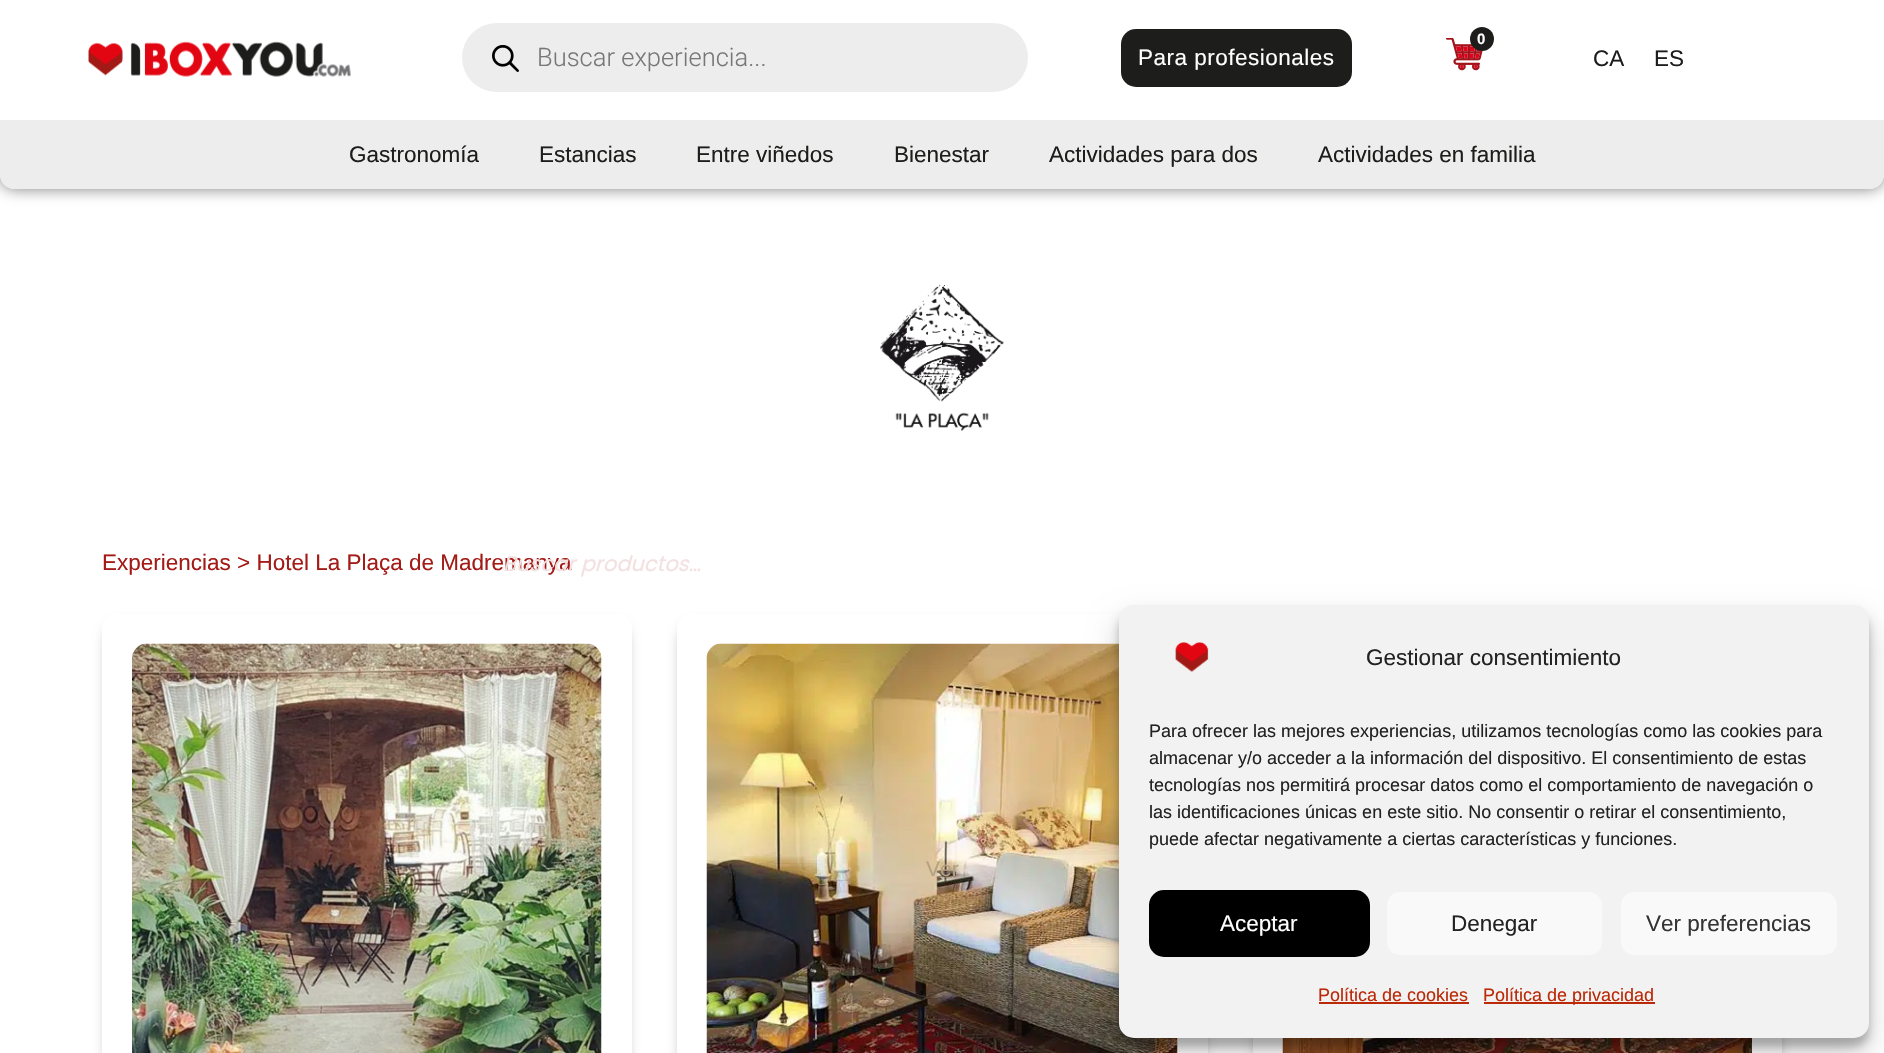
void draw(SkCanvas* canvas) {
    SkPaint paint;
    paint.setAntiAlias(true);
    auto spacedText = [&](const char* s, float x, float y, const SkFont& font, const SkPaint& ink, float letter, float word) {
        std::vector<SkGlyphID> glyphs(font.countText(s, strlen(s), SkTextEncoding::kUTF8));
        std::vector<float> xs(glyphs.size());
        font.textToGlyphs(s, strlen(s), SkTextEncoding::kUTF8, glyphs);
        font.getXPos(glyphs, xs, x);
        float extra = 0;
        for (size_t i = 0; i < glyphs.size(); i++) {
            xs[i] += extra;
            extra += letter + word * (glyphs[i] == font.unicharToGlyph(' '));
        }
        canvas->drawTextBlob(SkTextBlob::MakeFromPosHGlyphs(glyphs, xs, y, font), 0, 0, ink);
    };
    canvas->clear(0xFFFFFFFF);
    canvas->save();
    canvas->clipPath(SkPathBuilder(SkPathFillType::kEvenOdd).moveTo(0, 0).lineTo(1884, 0).lineTo(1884, 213).lineTo(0, 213).close().moveTo(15, 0).lineTo(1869, 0).cubicTo(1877.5f, 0, 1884, 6.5f, 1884, 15).lineTo(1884, 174).cubicTo(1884, 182.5f, 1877.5f, 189, 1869, 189).lineTo(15, 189).cubicTo(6.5f, 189, 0, 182.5f, 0, 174).lineTo(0, 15).cubicTo(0, 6.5f, 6.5f, 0, 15, 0).close().detach(), true);
    paint.setColor(0x80000000);
    paint.setMaskFilter(SkMaskFilter::MakeBlur(kNormal_SkBlurStyle, 7.5f));
    canvas->drawRoundRect(SkRect::MakeXYWH(0, 0, 1884, 189), 15, 15, paint);
    paint.setMaskFilter(nullptr);
    canvas->restore();
    paint.setColor(0xFFFFFFFF);
    canvas->drawRect(SkRect::MakeXYWH(0, 0, 1884, 14), paint);
    canvas->drawImageRect(SkImages::DeferredFromEncodedData(SkData::MakeFromFileName("img1.png")), SkRect::MakeXYWH(1446, 38, 37, 33), SkSamplingOptions());
    paint.setColor(0xFF1D1D1B);
    canvas->drawCircle(1482, 39, 12, paint);
    SkFont font1(fontMgr->matchFamilyStyle("Liberation Sans", SkFontStyle::Bold()), 15);
    font1.setSubpixel(true);
    paint.setColor(0xFFFFFFFF);
    canvas->drawString("0", 1477, 44, font1, paint);
    canvas->drawImageRect(SkImages::DeferredFromEncodedData(SkData::MakeFromFileName("img2.png")), SkRect::MakeXYWH(88, 41, 263, 36), SkSamplingOptions());
    paint.setColor(0xFFEDEDED);
    canvas->drawRoundRect(SkRect::MakeXYWH(462, 23, 566, 69), 34.5f, 34.5f, paint);
    canvas->drawImageRect(SkImages::DeferredFromEncodedData(SkData::MakeFromFileName("img3.png")), SkRect::MakeXYWH(492, 45, 27, 27), SkSamplingOptions());
    SkFont font2(fontMgr->matchFamilyStyle("Roboto", SkFontStyle(300, SkFontStyle::kNormal_Width, SkFontStyle::kUpright_Slant)), 25.5f);
    font2.setSubpixel(true);
    paint.setColor(0xFF777777);
    canvas->drawString("Buscar experiencia...", 537, 66, font2, paint);
    paint.setColor(0xFF1D1D1B);
    canvas->drawRoundRect(SkRect::MakeXYWH(1121, 29, 231, 58), 15, 15, paint);
    SkFont font3(fontMgr->matchFamilyStyle("Liberation Sans", SkFontStyle::Normal()), 22.5f);
    font3.setSubpixel(true);
    paint.setColor(0xFFFFFFFF);
    spacedText("Para profesionales", 1138, 65, font3, paint, 0.5f, 0);
    paint.setColor(0xFF1D1D1B);
    canvas->drawString("CA", 1593, 66, font3, paint);
    canvas->drawString("ES", 1654, 66, font3, paint);
    paint.setColor(0xFFEDEDED);
    canvas->drawPath(SkPathBuilder().moveTo(0, 120).lineTo(1884, 120).lineTo(1884, 174).cubicTo(1884, 182.5f, 1877.5f, 189, 1869, 189).lineTo(15, 189).cubicTo(6.5f, 189, 0, 182.5f, 0, 174).close().detach(), paint);
    paint.setColor(0xFF1D1D1B);
    canvas->drawString("Gastronomía", 349, 162, font3, paint);
    canvas->drawString("Estancias", 539, 162, font3, paint);
    canvas->drawString("Entre viñedos", 696, 162, font3, paint);
    canvas->drawString("Bienestar", 894, 162, font3, paint);
    canvas->drawString("Actividades para dos", 1049, 162, font3, paint);
    canvas->drawString("Actividades en familia", 1318, 162, font3, paint);
    canvas->drawImageRect(SkImages::DeferredFromEncodedData(SkData::MakeFromFileName("img4.png")), SkRect::MakeXYWH(880, 285, 124, 146), SkSamplingOptions());
    paint.setColor(0xFFA31A16);
    canvas->drawString("Experiencias > Hotel La Plaça de Madremanya", 102, 570, font3, paint);
    canvas->save();
    canvas->clipPath(SkPathBuilder(SkPathFillType::kEvenOdd).moveTo(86, 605).lineTo(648, 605).lineTo(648, 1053).lineTo(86, 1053).close().moveTo(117, 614).lineTo(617, 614).cubicTo(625.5f, 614, 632, 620.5f, 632, 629).lineTo(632, 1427).cubicTo(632, 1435.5f, 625.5f, 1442, 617, 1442).lineTo(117, 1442).cubicTo(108.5f, 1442, 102, 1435.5f, 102, 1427).lineTo(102, 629).cubicTo(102, 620.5f, 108.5f, 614, 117, 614).close().detach(), true);
    paint.setColor(0x80000000);
    paint.setMaskFilter(SkMaskFilter::MakeBlur(kNormal_SkBlurStyle, 7.5f));
    canvas->drawRoundRect(SkRect::MakeXYWH(110, 629, 514, 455), 8, 8, paint);
    paint.setMaskFilter(nullptr);
    canvas->restore();
    canvas->drawImageRect(SkImages::DeferredFromEncodedData(SkData::MakeFromFileName("img5.png")), SkRect::MakeXYWH(132, 643, 470, 410), SkSamplingOptions());
    canvas->save();
    canvas->clipPath(SkPathBuilder(SkPathFillType::kEvenOdd).moveTo(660, 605).lineTo(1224, 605).lineTo(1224, 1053).lineTo(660, 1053).close().moveTo(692, 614).lineTo(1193, 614).cubicTo(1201.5f, 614, 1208, 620.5f, 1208, 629).lineTo(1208, 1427).cubicTo(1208, 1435.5f, 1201.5f, 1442, 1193, 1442).lineTo(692, 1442).cubicTo(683.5f, 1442, 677, 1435.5f, 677, 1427).lineTo(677, 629).cubicTo(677, 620.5f, 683.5f, 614, 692, 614).close().detach(), true);
    paint.setMaskFilter(SkMaskFilter::MakeBlur(kNormal_SkBlurStyle, 7.5f));
    canvas->drawRoundRect(SkRect::MakeXYWH(684, 629, 516, 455), 8, 8, paint);
    paint.setMaskFilter(nullptr);
    canvas->restore();
    canvas->drawImageRect(SkImages::DeferredFromEncodedData(SkData::MakeFromFileName("img6.png")), SkRect::MakeXYWH(706, 643, 472, 410), SkSamplingOptions());
    SkFont font4(fontMgr->matchFamilyStyle("Liberation Sans", SkFontStyle::Normal()), 21);
    font4.setSubpixel(true);
    paint.setColor(0xFFB4A182);
    canvas->drawString("Ver", 926, 876, font4, paint);
    canvas->save();
    canvas->clipPath(SkPathBuilder(SkPathFillType::kEvenOdd).moveTo(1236, 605).lineTo(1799, 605).lineTo(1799, 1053).lineTo(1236, 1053).close().moveTo(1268, 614).lineTo(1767, 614).cubicTo(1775.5f, 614, 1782, 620.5f, 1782, 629).lineTo(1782, 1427).cubicTo(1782, 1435.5f, 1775.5f, 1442, 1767, 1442).lineTo(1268, 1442).cubicTo(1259.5f, 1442, 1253, 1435.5f, 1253, 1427).lineTo(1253, 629).cubicTo(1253, 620.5f, 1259.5f, 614, 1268, 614).close().detach(), true);
    paint.setColor(0x80000000);
    paint.setMaskFilter(SkMaskFilter::MakeBlur(kNormal_SkBlurStyle, 7.5f));
    canvas->drawRoundRect(SkRect::MakeXYWH(1260, 629, 515, 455), 8, 8, paint);
    paint.setMaskFilter(nullptr);
    canvas->restore();
    canvas->drawImageRect(SkImages::DeferredFromEncodedData(SkData::MakeFromFileName("img7.png")), SkRect::MakeXYWH(1282, 1038, 470, 15), SkSamplingOptions());
    SkFont font5(fontMgr->matchFamilyStyle("Poppins", SkFontStyle::Italic()), 21);
    font5.setSubpixel(true);
    paint.setColor(0xFFF3E1E1);
    canvas->drawString("Buscar productos…", 503, 571, font5, paint);
    paint.setColor(0x3B000000);
    paint.setMaskFilter(SkMaskFilter::MakeBlur(kNormal_SkBlurStyle, 4.5f));
    canvas->drawRoundRect(SkRect::MakeXYWH(1119, 614, 750, 433), 15, 15, paint);
    paint.setMaskFilter(nullptr);
    paint.setColor(0x30000000);
    paint.setMaskFilter(SkMaskFilter::MakeBlur(kNormal_SkBlurStyle, 15));
    canvas->drawRoundRect(SkRect::MakeXYWH(1119, 620, 750, 433), 15, 15, paint);
    paint.setMaskFilter(nullptr);
    paint.setColor(0xFFF2F2F2);
    canvas->drawRoundRect(SkRect::MakeXYWH(1119, 605, 750, 433), 15, 15, paint);
    canvas->drawImageRect(SkImages::DeferredFromEncodedData(SkData::MakeFromFileName("img8.png")), SkRect::MakeXYWH(1175, 642, 34, 30), SkSamplingOptions());
    paint.setColor(0xFF222222);
    canvas->drawString("Gestionar consentimiento", 1366, 665, font3, paint);
    SkFont font6(fontMgr->matchFamilyStyle("Liberation Sans", SkFontStyle::Normal()), 18);
    font6.setSubpixel(true);
    canvas->drawString("Para ofrecer las mejores experiencias, utilizamos tecnologías como las cookies para", 1149, 737, font6, paint);
    canvas->drawString("almacenar y/o acceder a la información del dispositivo. El consentimiento de estas", 1149, 764, font6, paint);
    canvas->drawString("tecnologías nos permitirá procesar datos como el comportamiento de navegación o", 1149, 791, font6, paint);
    canvas->drawString("las identificaciones únicas en este sitio. No consentir o retirar el consentimiento,", 1149, 818, font6, paint);
    canvas->drawString("puede afectar negativamente a ciertas características y funciones.", 1149, 845, font6, paint);
    paint.setColor(0xFF000000);
    canvas->drawRoundRect(SkRect::MakeXYWH(1150, 891, 219, 65), 14, 14, paint);
    paint.setStyle(SkPaint::kStroke_Style);
    paint.setStrokeWidth(2);
    canvas->drawRoundRect(SkRect::MakeXYWH(1150, 891, 219, 65), 14, 14, paint);
    paint.setStyle(SkPaint::kFill_Style);
    paint.setColor(0xFFFFFFFF);
    canvas->drawString("Aceptar", 1220, 931, font3, paint);
    paint.setColor(0xFFF9F9F9);
    canvas->drawRoundRect(SkRect::MakeXYWH(1386, 891, 217, 65), 14, 14, paint);
    paint.setStyle(SkPaint::kStroke_Style);
    paint.setColor(0xFFF2F2F2);
    canvas->drawRoundRect(SkRect::MakeXYWH(1386, 891, 217, 65), 14, 14, paint);
    paint.setStyle(SkPaint::kFill_Style);
    paint.setColor(0xFF222222);
    canvas->drawString("Denegar", 1451, 931, font3, paint);
    paint.setColor(0xFFF9F9F9);
    canvas->drawRoundRect(SkRect::MakeXYWH(1620, 891, 218, 65), 14, 14, paint);
    paint.setStyle(SkPaint::kStroke_Style);
    paint.setColor(0xFFF2F2F2);
    canvas->drawRoundRect(SkRect::MakeXYWH(1620, 891, 218, 65), 14, 14, paint);
    paint.setStyle(SkPaint::kFill_Style);
    paint.setColor(0xFF333333);
    canvas->drawString("Ver preferencias", 1646, 931, font3, paint);
    paint.setColor(0xFFBB2906);
    canvas->drawString("Política de cookies", 1318, 1001, font6, paint);
    canvas->drawRect(SkRect::MakeXYWH(1319, 1002, 150, 2), paint);
    canvas->drawRect(SkRect::MakeXYWH(1484, 1002, 171, 2), paint);
    canvas->drawString("Política de privacidad", 1483, 1001, font6, paint);
}
